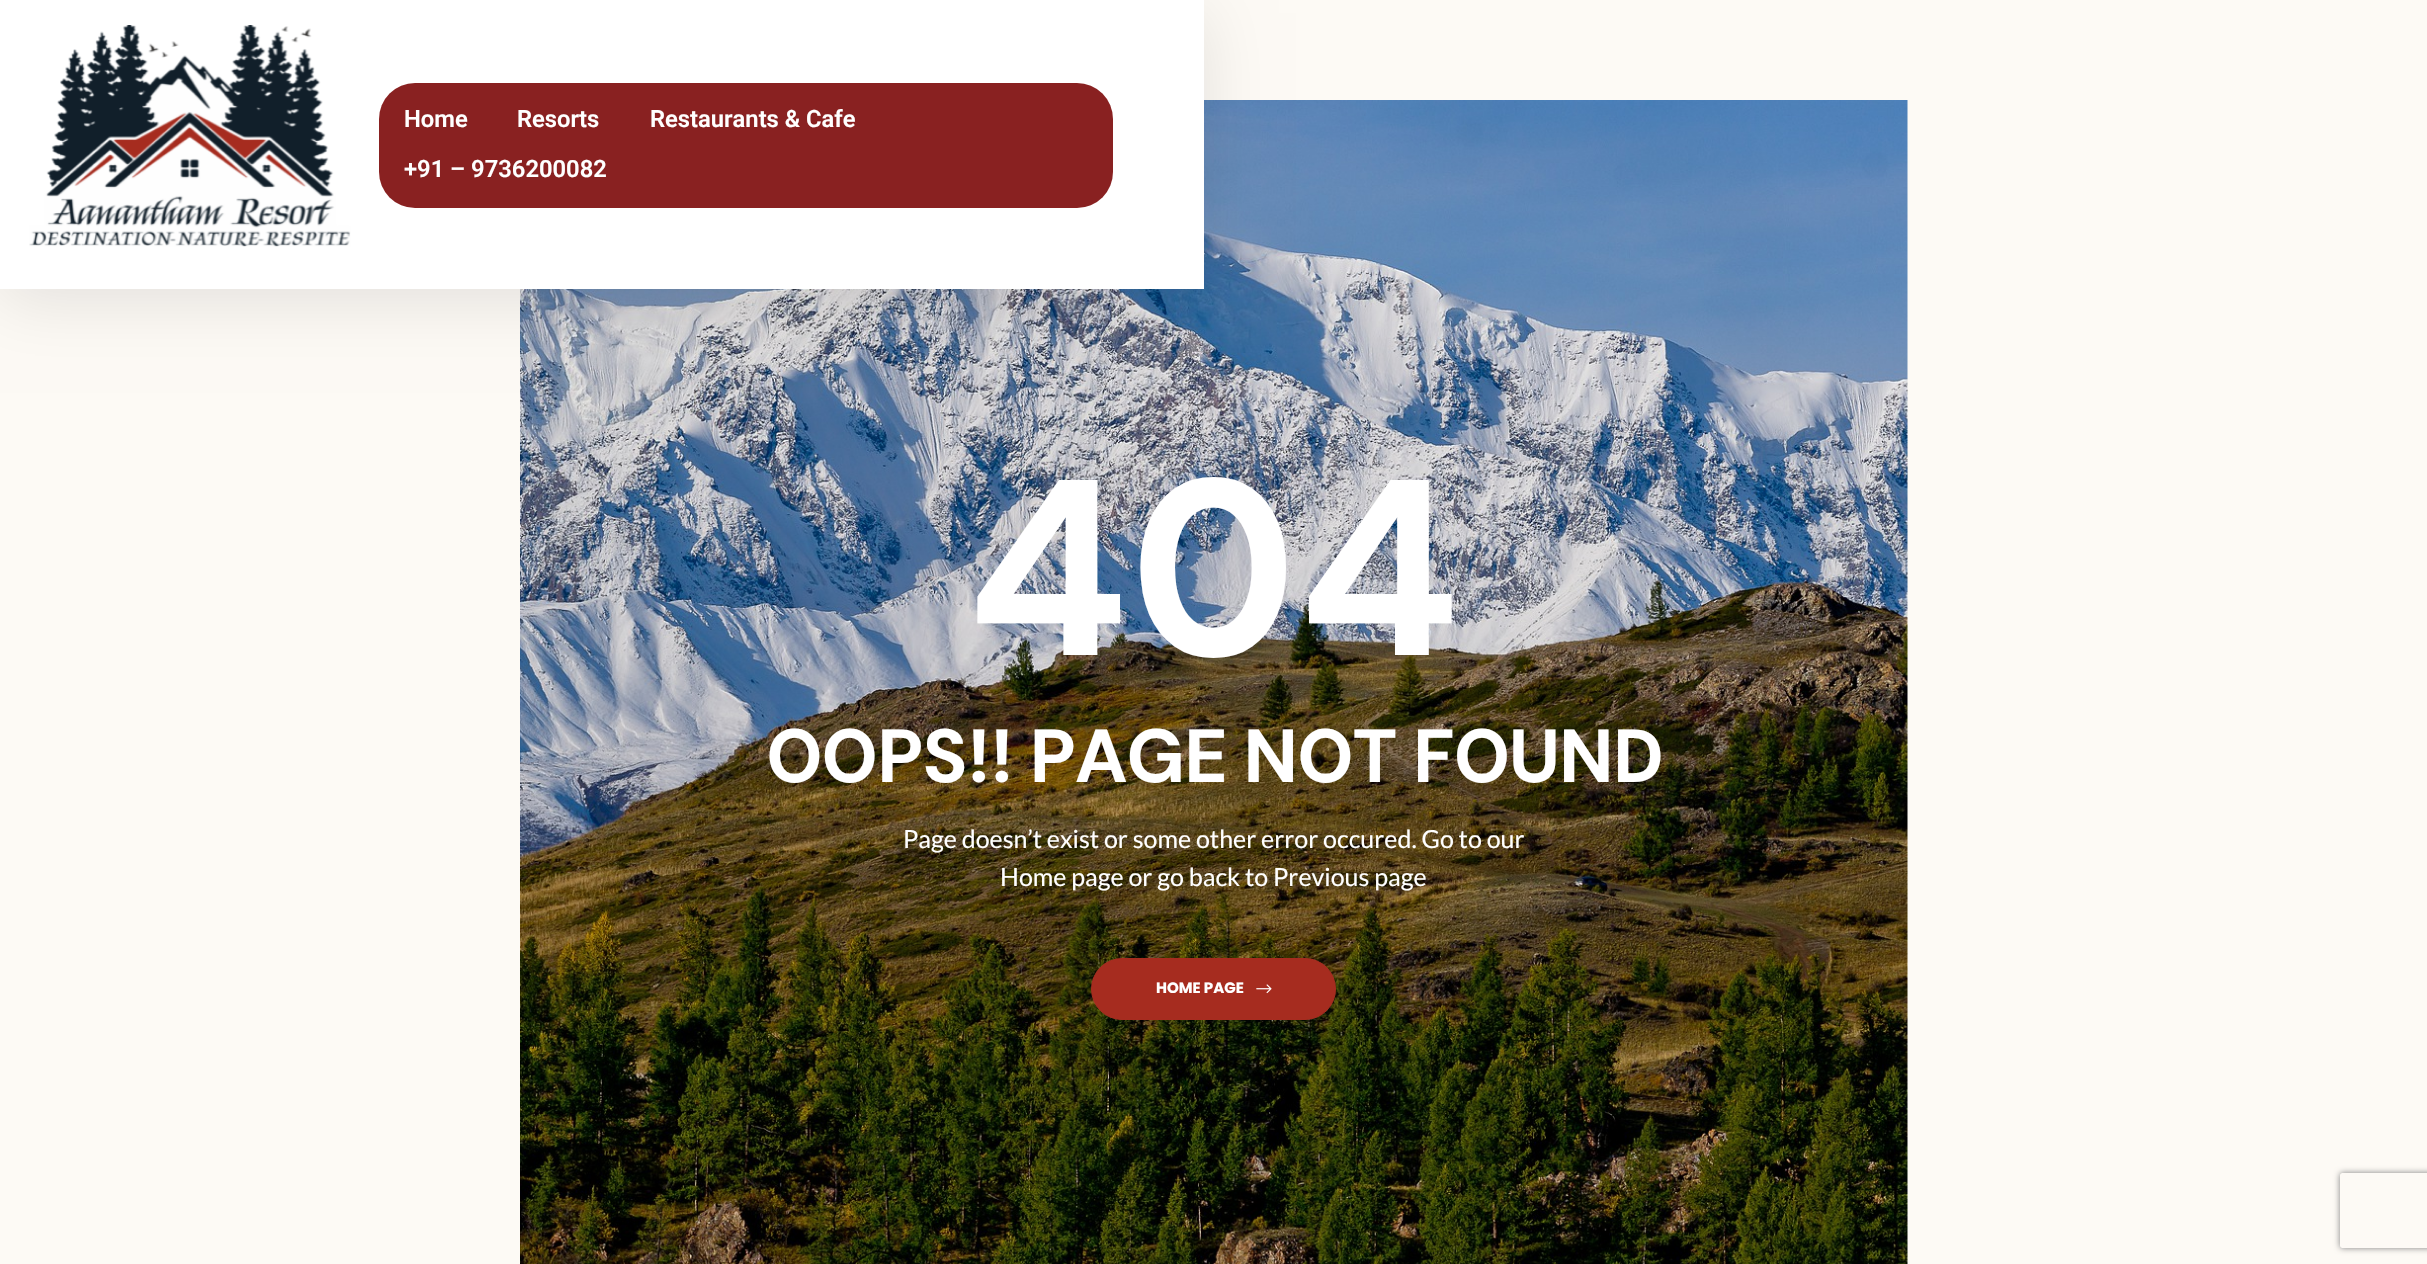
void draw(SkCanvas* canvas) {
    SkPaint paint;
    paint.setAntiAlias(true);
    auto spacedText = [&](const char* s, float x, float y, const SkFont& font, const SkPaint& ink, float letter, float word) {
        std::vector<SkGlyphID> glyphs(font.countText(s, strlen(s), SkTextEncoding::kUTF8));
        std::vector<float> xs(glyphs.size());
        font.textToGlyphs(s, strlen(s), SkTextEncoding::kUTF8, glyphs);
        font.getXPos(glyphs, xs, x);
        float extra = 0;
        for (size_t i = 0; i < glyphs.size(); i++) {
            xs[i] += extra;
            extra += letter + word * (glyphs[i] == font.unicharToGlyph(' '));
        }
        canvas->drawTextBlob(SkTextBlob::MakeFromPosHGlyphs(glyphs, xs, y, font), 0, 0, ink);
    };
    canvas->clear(0xFFFDFAF5);
    canvas->drawImageRect(SkImages::DeferredFromEncodedData(SkData::MakeFromFileName("img2.png")), SkRect::MakeXYWH(520, 100, 1388, 1164), SkSamplingOptions());
    paint.setColor(0x1A000000);
    paint.setMaskFilter(SkMaskFilter::MakeBlur(kNormal_SkBlurStyle, 31));
    canvas->drawRect(SkRect::MakeXYWH(0, 13, 1204, 288), paint);
    paint.setMaskFilter(nullptr);
    paint.setColor(0xFFFFFFFF);
    canvas->drawRect(SkRect::MakeXYWH(0, 0, 1204, 289), paint);
    canvas->drawImageRect(SkImages::DeferredFromEncodedData(SkData::MakeFromFileName("img1.png")), SkRect::MakeXYWH(29, 25, 322, 222), SkSamplingOptions());
    paint.setColor(0xFF892121);
    canvas->drawRoundRect(SkRect::MakeXYWH(379, 83, 734, 125), 36, 36, paint);
    SkFont font1(fontMgr->matchFamilyStyle("Roboto", SkFontStyle(600, SkFontStyle::kNormal_Width, SkFontStyle::kUpright_Slant)), 23.75f);
    font1.setSubpixel(true);
    paint.setColor(0xFFFFFFFF);
    canvas->drawString("Home", 404, 127, font1, paint);
    canvas->drawString("Resorts", 517, 127, font1, paint);
    canvas->drawString("Restaurants & Cafe", 650, 127, font1, paint);
    canvas->drawString("+91 – 9736200082", 404, 177, font1, paint);
    SkFont font2(fontMgr->matchFamilyStyle("DM Sans", SkFontStyle::Bold()), 250);
    font2.setSubpixel(true);
    spacedText("404", 965, 655, font2, paint, -1.5f, 0);
    SkFont font3(fontMgr->matchFamilyStyle("DM Sans", SkFontStyle::Bold()), 75);
    font3.setSubpixel(true);
    spacedText("OOPS!! PAGE NOT FOUND", 766, 782, font3, paint, -1.5f, 0);
    SkFont font4(fontMgr->matchFamilyStyle("Lato", SkFontStyle::Normal()), 25);
    font4.setSubpixel(true);
    canvas->drawString("Page doesn’t exist or some other error occured. Go to our", 903, 848, font4, paint);
    canvas->drawString("Home page or go back to Previous page", 1000, 886, font4, paint);
    paint.setColor(0xFFA62C1F);
    canvas->drawRoundRect(SkRect::MakeXYWH(1091.5f, 958.5f, 244, 61), 30.5f, 30.5f, paint);
    paint.setStyle(SkPaint::kStroke_Style);
    paint.setStrokeWidth(1);
    canvas->drawRoundRect(SkRect::MakeXYWH(1091.5f, 958.5f, 244, 61), 30.5f, 30.5f, paint);
    SkFont font5(fontMgr->matchFamilyStyle("Poppins", SkFontStyle::Bold()), 15);
    font5.setSubpixel(true);
    paint.setStyle(SkPaint::kFill_Style);
    paint.setColor(0xFFFFFFFF);
    canvas->drawString("HOME PAGE", 1156, 993, font5, paint);
    canvas->drawImageRect(SkImages::DeferredFromEncodedData(SkData::MakeFromFileName("img3.png")), SkRect::MakeXYWH(1256, 984, 16, 10), SkSamplingOptions());
    canvas->save();
    canvas->clipPath(SkPathBuilder(SkPathFillType::kEvenOdd).moveTo(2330, 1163).lineTo(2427, 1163).lineTo(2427, 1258).lineTo(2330, 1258).close().moveTo(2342.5f, 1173).lineTo(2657.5f, 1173).cubicTo(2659, 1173, 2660, 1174, 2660, 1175.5f).lineTo(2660, 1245.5f).cubicTo(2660, 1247, 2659, 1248, 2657.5f, 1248).lineTo(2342.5f, 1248).cubicTo(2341, 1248, 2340, 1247, 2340, 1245.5f).lineTo(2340, 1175.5f).cubicTo(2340, 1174, 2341, 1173, 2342.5f, 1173).close().detach(), true);
    paint.setColor(0xFF808080);
    paint.setMaskFilter(SkMaskFilter::MakeBlur(kNormal_SkBlurStyle, 3));
    canvas->drawRoundRect(SkRect::MakeXYWH(2340, 1173, 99, 75), 2.5f, 2.5f, paint);
    paint.setMaskFilter(nullptr);
    canvas->restore();
}
